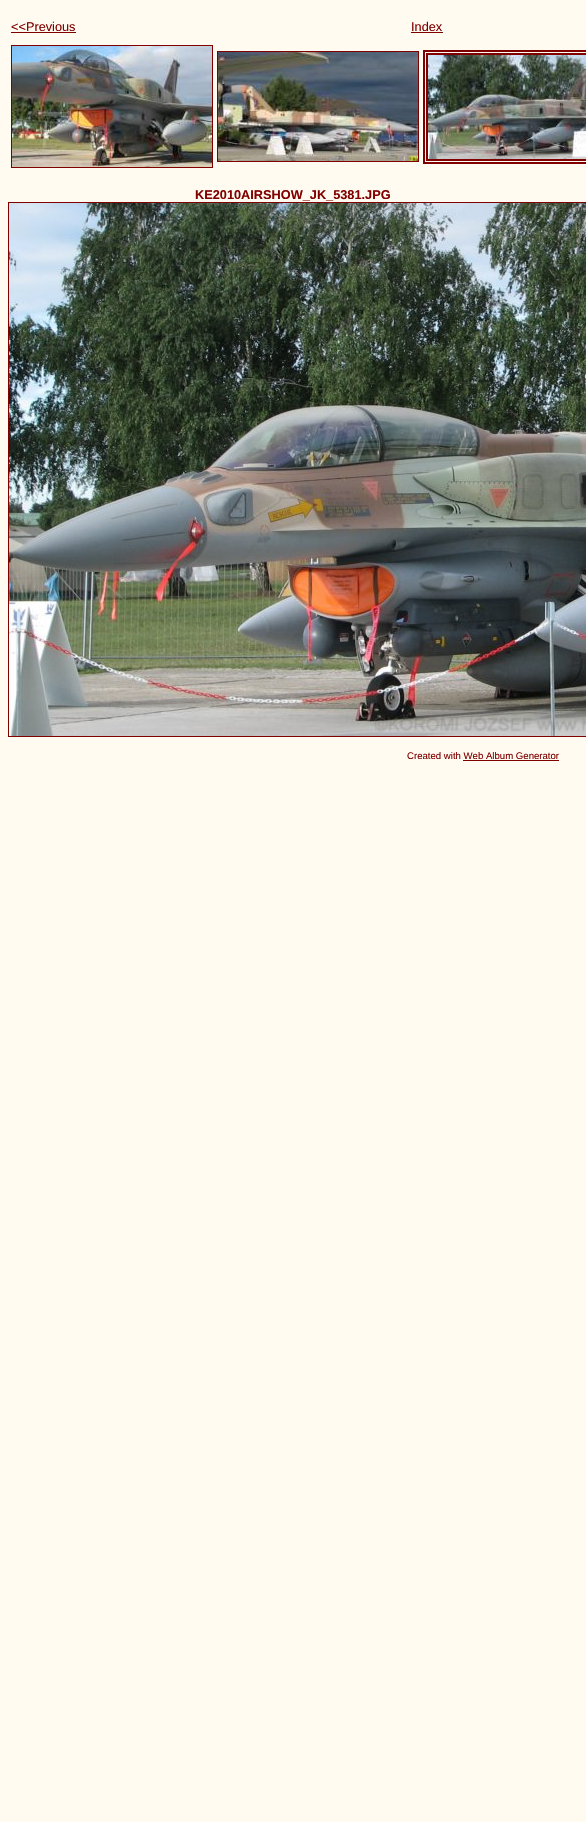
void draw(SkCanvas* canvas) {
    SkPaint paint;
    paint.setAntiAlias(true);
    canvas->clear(0xFFFFFBF0);
    SkFont font1(fontMgr->matchFamilyStyle("Liberation Sans", SkFontStyle::Normal()), 12.75f);
    font1.setSubpixel(true);
    paint.setColor(0xFF800000);
    canvas->drawString("<<Previous", 11, 31, font1, paint);
    canvas->drawRect(SkRect::MakeXYWH(11, 32, 65, 1), paint);
    canvas->drawString("Index", 411, 31, font1, paint);
    canvas->drawRect(SkRect::MakeXYWH(411, 32, 32, 1), paint);
    paint.setStyle(SkPaint::kStroke_Style);
    paint.setStrokeWidth(1);
    canvas->drawRect(SkRect::MakeXYWH(11.5f, 45.5f, 201, 122), paint);
    canvas->drawImageRect(SkImages::DeferredFromEncodedData(SkData::MakeFromFileName("img1.png")), SkRect::MakeXYWH(12, 46, 200, 121), SkSamplingOptions());
    canvas->drawRect(SkRect::MakeXYWH(217.5f, 51.5f, 201, 110), paint);
    canvas->drawImageRect(SkImages::DeferredFromEncodedData(SkData::MakeFromFileName("img2.png")), SkRect::MakeXYWH(218, 52, 200, 109), SkSamplingOptions());
    paint.setStrokeWidth(2);
    canvas->drawRect(SkRect::MakeXYWH(424, 51, 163, 112), paint);
    canvas->drawRect(SkRect::MakeXYWH(427, 54, 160, 106), paint);
    canvas->drawImageRect(SkImages::DeferredFromEncodedData(SkData::MakeFromFileName("img3.png")), SkRect::MakeXYWH(428, 55, 158, 104), SkSamplingOptions());
    SkFont font2(fontMgr->matchFamilyStyle("Liberation Sans", SkFontStyle::Bold()), 12.75f);
    font2.setSubpixel(true);
    paint.setStyle(SkPaint::kFill_Style);
    canvas->drawString("KE2010AIRSHOW_JK_5381.JPG", 195, 199, font2, paint);
    paint.setStyle(SkPaint::kStroke_Style);
    paint.setStrokeWidth(1);
    canvas->drawRect(SkRect::MakeXYWH(8.5f, 202.5f, 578, 534), paint);
    canvas->drawImageRect(SkImages::DeferredFromEncodedData(SkData::MakeFromFileName("img4.png")), SkRect::MakeXYWH(9, 203, 577, 533), SkSamplingOptions());
    SkFont font3(fontMgr->matchFamilyStyle("Liberation Sans", SkFontStyle::Normal()), 9.6f);
    font3.setSubpixel(true);
    paint.setStyle(SkPaint::kFill_Style);
    canvas->drawString("Created with Web Album Generator", 407, 759, font3, paint);
    canvas->drawRect(SkRect::MakeXYWH(463, 760, 96, 1), paint);
}
